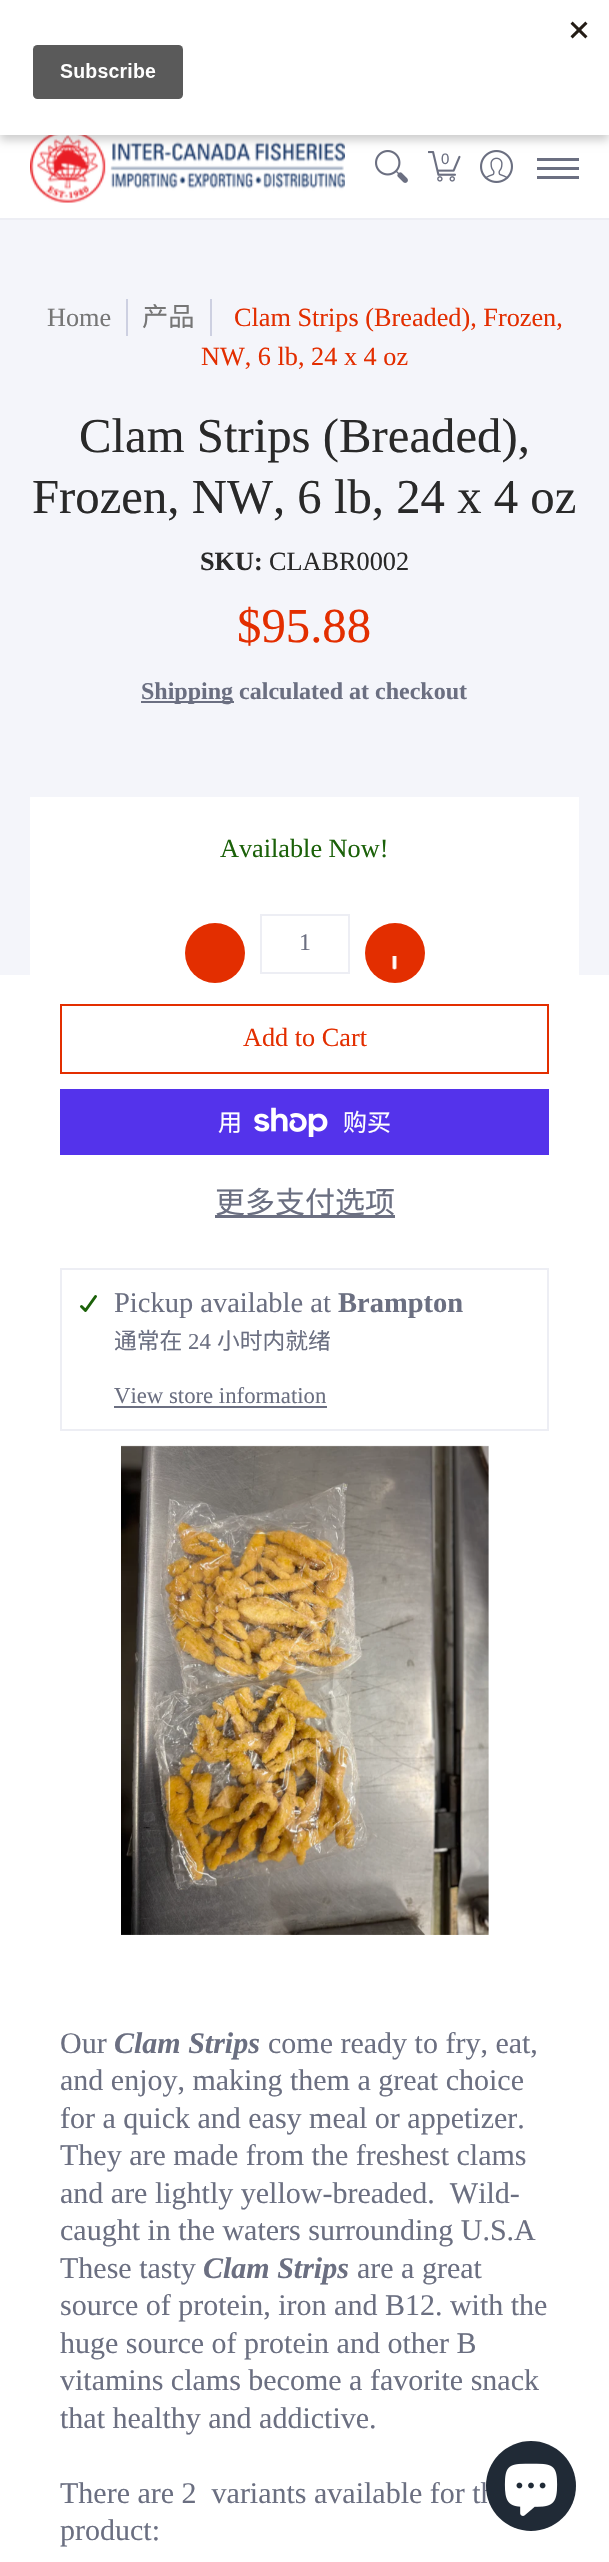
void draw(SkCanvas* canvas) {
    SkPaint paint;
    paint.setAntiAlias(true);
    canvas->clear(0xFFFFFFFF);
    canvas->drawImageRect(SkImages::DeferredFromEncodedData(SkData::MakeFromFileName("img2.png")), SkRect::MakeXYWH(30, 135, 315, 68), SkSamplingOptions());
    canvas->drawImageRect(SkImages::DeferredFromEncodedData(SkData::MakeFromFileName("img3.png")), SkRect::MakeXYWH(375, 150, 33, 33), SkSamplingOptions());
    canvas->drawImageRect(SkImages::DeferredFromEncodedData(SkData::MakeFromFileName("img4.png")), SkRect::MakeXYWH(428, 151, 33, 31), SkSamplingOptions());
    canvas->drawImageRect(SkImages::DeferredFromEncodedData(SkData::MakeFromFileName("img5.png")), SkRect::MakeXYWH(480, 150, 33, 33), SkSamplingOptions());
    paint.setColor(0x33000000);
    paint.setMaskFilter(SkMaskFilter::MakeBlur(kNormal_SkBlurStyle, 4.5f));
    canvas->drawRect(SkRect::MakeXYWH(0, 5, 609, 135), paint);
    paint.setMaskFilter(nullptr);
    paint.setColor(0xFFFFFFFF);
    canvas->drawRect(SkRect::MakeXYWH(0, 0, 609, 135), paint);
    canvas->drawImageRect(SkImages::DeferredFromEncodedData(SkData::MakeFromFileName("img1.png")), SkRect::MakeXYWH(32, 21, 556, 78), SkSamplingOptions());
    paint.setColor(0xFFEDEEF4);
    canvas->drawRect(SkRect::MakeXYWH(0, 218, 609, 2), paint);
    SkFont font1(fontMgr->matchFamilyStyle("Liberation Sans", SkFontStyle::Normal()), 15);
    font1.setSubpixel(true);
    paint.setColor(0xFF6B6F81);
    canvas->drawString("0", 441, 164, font1, paint);
    canvas->drawRect(SkRect::MakeXYWH(537, 158, 42, 3), paint);
    canvas->drawRect(SkRect::MakeXYWH(537, 176, 42, 3), paint);
    canvas->drawRect(SkRect::MakeXYWH(537, 167, 42, 3), paint);
    paint.setColor(0xFFF4F5FA);
    canvas->drawRect(SkRect::MakeXYWH(0, 220, 609, 755), paint);
    SkFont font2(fontMgr->matchFamilyStyle("Liberation Serif", SkFontStyle::Normal()), 26.25f);
    font2.setSubpixel(true);
    paint.setColor(0xFF767676);
    canvas->drawString("Home", 47, 326, font2, paint);
    paint.setColor(0xFFCDD0E1);
    canvas->drawRect(SkRect::MakeXYWH(126, 299, 2, 37), paint);
    SkFont font3(fontMgr->matchFamilyStyle("Noto Sans CJK SC", SkFontStyle::Normal()), 26.25f);
    font3.setSubpixel(true);
    paint.setColor(0xFF767676);
    canvas->drawString("产品", 142, 326, font3, paint);
    paint.setColor(0xFFCDD0E1);
    canvas->drawRect(SkRect::MakeXYWH(210, 299, 2, 37), paint);
    paint.setColor(0xFFE32E00);
    canvas->drawString("Clam Strips (Breaded), Frozen,", 234, 326, font2, paint);
    canvas->drawString("NW, 6 lb, 24 x 4 oz", 201, 365, font2, paint);
    SkFont font4(fontMgr->matchFamilyStyle("Liberation Serif", SkFontStyle::Normal()), 48.75f);
    font4.setSubpixel(true);
    paint.setColor(0xFF292929);
    canvas->drawString("Clam Strips (Breaded),", 79, 452, font4, paint);
    canvas->drawString("Frozen, NW, 6 lb, 24 x 4 oz", 32, 513, font4, paint);
    SkFont font5(fontMgr->matchFamilyStyle("Liberation Serif", SkFontStyle::Bold()), 26.25f);
    font5.setSubpixel(true);
    canvas->drawString("SKU:", 200, 570, font5, paint);
    canvas->drawString("CLABR0002", 269, 570, font2, paint);
    paint.setColor(0xFFE32E00);
    canvas->drawString("$95.88", 237, 642, font4, paint);
    paint.setColor(0xFF6B6F81);
    canvas->drawRect(SkRect::MakeXYWH(141, 701, 93, 2), paint);
    SkFont font6(fontMgr->matchFamilyStyle("Liberation Serif", SkFontStyle::Bold()), 24);
    font6.setSubpixel(true);
    canvas->drawString("Shipping calculated at checkout", 141, 699, font6, paint);
    paint.setColor(0xFFFFFFFF);
    canvas->drawRect(SkRect::MakeXYWH(30, 797, 549, 178), paint);
    paint.setColor(0xFF1B6109);
    canvas->drawString("Available Now!", 220, 857, font2, paint);
    paint.setColor(0xFFE32E00);
    canvas->drawCircle(215, 953, 30, paint);
    paint.setStyle(SkPaint::kStroke_Style);
    paint.setStrokeWidth(2);
    paint.setColor(0xFFEDEEF4);
    canvas->drawRect(SkRect::MakeXYWH(261, 915, 88, 58), paint);
    SkFont font7(fontMgr->matchFamilyStyle("Liberation Serif", SkFontStyle::Normal()), 24);
    font7.setSubpixel(true);
    paint.setStyle(SkPaint::kFill_Style);
    paint.setColor(0xFF6B6F81);
    canvas->drawString("1", 299, 950, font7, paint);
    paint.setColor(0xFFE32E00);
    canvas->drawCircle(395, 953, 30, paint);
    canvas->drawImageRect(SkImages::DeferredFromEncodedData(SkData::MakeFromFileName("img6.png")), SkRect::MakeXYWH(392, 956, 5, 14), SkSamplingOptions());
    paint.setStyle(SkPaint::kStroke_Style);
    canvas->drawRect(SkRect::MakeXYWH(61, 1005, 487, 68), paint);
    paint.setStyle(SkPaint::kFill_Style);
    canvas->drawString("Add to Cart", 243, 1046, font2, paint);
    paint.setColor(0xFF5433EB);
    canvas->drawRect(SkRect::MakeXYWH(60, 1089, 489, 66), paint);
    SkFont font8(fontMgr->matchFamilyStyle("Noto Sans CJK SC", SkFontStyle::Normal()), 24);
    font8.setSubpixel(true);
    paint.setColor(0xFFFFFFFF);
    canvas->drawString("用", 218, 1131, font8, paint);
    canvas->drawImageRect(SkImages::DeferredFromEncodedData(SkData::MakeFromFileName("img7.png")), SkRect::MakeXYWH(254, 1107, 74, 30), SkSamplingOptions());
    canvas->drawString("购买", 343, 1131, font8, paint);
    paint.setColor(0xFF6B6F81);
    canvas->drawRect(SkRect::MakeXYWH(215, 1215, 180, 3), paint);
    SkFont font9(fontMgr->matchFamilyStyle("Noto Sans CJK SC", SkFontStyle::Normal()), 30);
    font9.setSubpixel(true);
    canvas->drawString("更多支付选项", 215, 1213, font9, paint);
    paint.setStyle(SkPaint::kStroke_Style);
    paint.setColor(0xFFEDEEF4);
    canvas->drawRect(SkRect::MakeXYWH(61, 1269, 487, 161), paint);
    paint.setStrokeWidth(3);
    paint.setStrokeCap(SkPaint::kRound_Cap);
    paint.setStrokeJoin(SkPaint::kRound_Join);
    paint.setColor(0xFF1B6109);
    canvas->drawPath(SkPathBuilder().moveTo(95.5f, 1296.5f).lineTo(85.5f, 1310.5f).lineTo(81.5f, 1306.5f).detach(), paint);
    SkFont font10(fontMgr->matchFamilyStyle("Liberation Serif", SkFontStyle::Normal()), 28.5f);
    font10.setSubpixel(true);
    paint.setStyle(SkPaint::kFill_Style);
    paint.setColor(0xFF6B6F81);
    canvas->drawString("Pickup available at", 114, 1312, font10, paint);
    SkFont font11(fontMgr->matchFamilyStyle("Liberation Serif", SkFontStyle::Bold()), 28.5f);
    font11.setSubpixel(true);
    canvas->drawString("Brampton", 338, 1312, font11, paint);
    SkFont font12(fontMgr->matchFamilyStyle("Noto Sans CJK SC", SkFontStyle::Normal()), 22.75f);
    font12.setSubpixel(true);
    canvas->drawString("通常在", 114, 1349, font12, paint);
    SkFont font13(fontMgr->matchFamilyStyle("Liberation Serif", SkFontStyle::Normal()), 22.75f);
    font13.setSubpixel(true);
    canvas->drawString("24", 188, 1349, font13, paint);
    canvas->drawString("小时内就绪", 217, 1349, font12, paint);
    canvas->drawString("View store information", 114, 1403, font13, paint);
    canvas->drawRect(SkRect::MakeXYWH(114, 1406, 213, 2), paint);
    canvas->drawImageRect(SkImages::DeferredFromEncodedData(SkData::MakeFromFileName("img8.png")), SkRect::MakeXYWH(121, 1445, 368, 490), SkSamplingOptions());
    SkFont font14(fontMgr->matchFamilyStyle("Liberation Serif", SkFontStyle::Normal()), 30);
    font14.setSubpixel(true);
    canvas->drawString("Our", 60, 2053, font14, paint);
    SkFont font15(fontMgr->matchFamilyStyle("Liberation Serif", SkFontStyle::BoldItalic()), 30);
    font15.setSubpixel(true);
    canvas->drawString("Clam Strips", 114, 2053, font15, paint);
    canvas->drawString("come ready to fry, eat,", 268, 2053, font14, paint);
    canvas->drawString("and enjoy, making them a great choice", 60, 2090, font14, paint);
    canvas->drawString("for a quick and easy meal or appetizer.", 60, 2128, font14, paint);
    canvas->drawString("They are made from the freshest clams", 60, 2165, font14, paint);
    canvas->drawString("and are lightly yellow-breaded.  Wild-", 60, 2203, font14, paint);
    canvas->drawString("caught in the waters surrounding U.S.A", 60, 2240, font14, paint);
    canvas->drawString("These tasty", 60, 2278, font14, paint);
    canvas->drawString("Clam Strips", 203, 2278, font15, paint);
    canvas->drawString("are a great", 357, 2278, font14, paint);
    canvas->drawString("source of protein, iron and B12. with the", 60, 2315, font14, paint);
    canvas->drawString("huge source of protein and other B", 60, 2353, font14, paint);
    canvas->drawString("vitamins clams become a favorite snack", 60, 2390, font14, paint);
    canvas->drawString("that healthy and addictive.", 60, 2428, font14, paint);
    canvas->drawString("There are 2  variants available for th", 60, 2503, font14, paint);
    canvas->drawString("product:", 60, 2540, font14, paint);
    paint.setColor(0xFF202A36);
    canvas->drawCircle(531, 2486, 45, paint);
    canvas->drawImageRect(SkImages::DeferredFromEncodedData(SkData::MakeFromFileName("img9.png")), SkRect::MakeXYWH(504, 2463, 54, 53), SkSamplingOptions());
}
